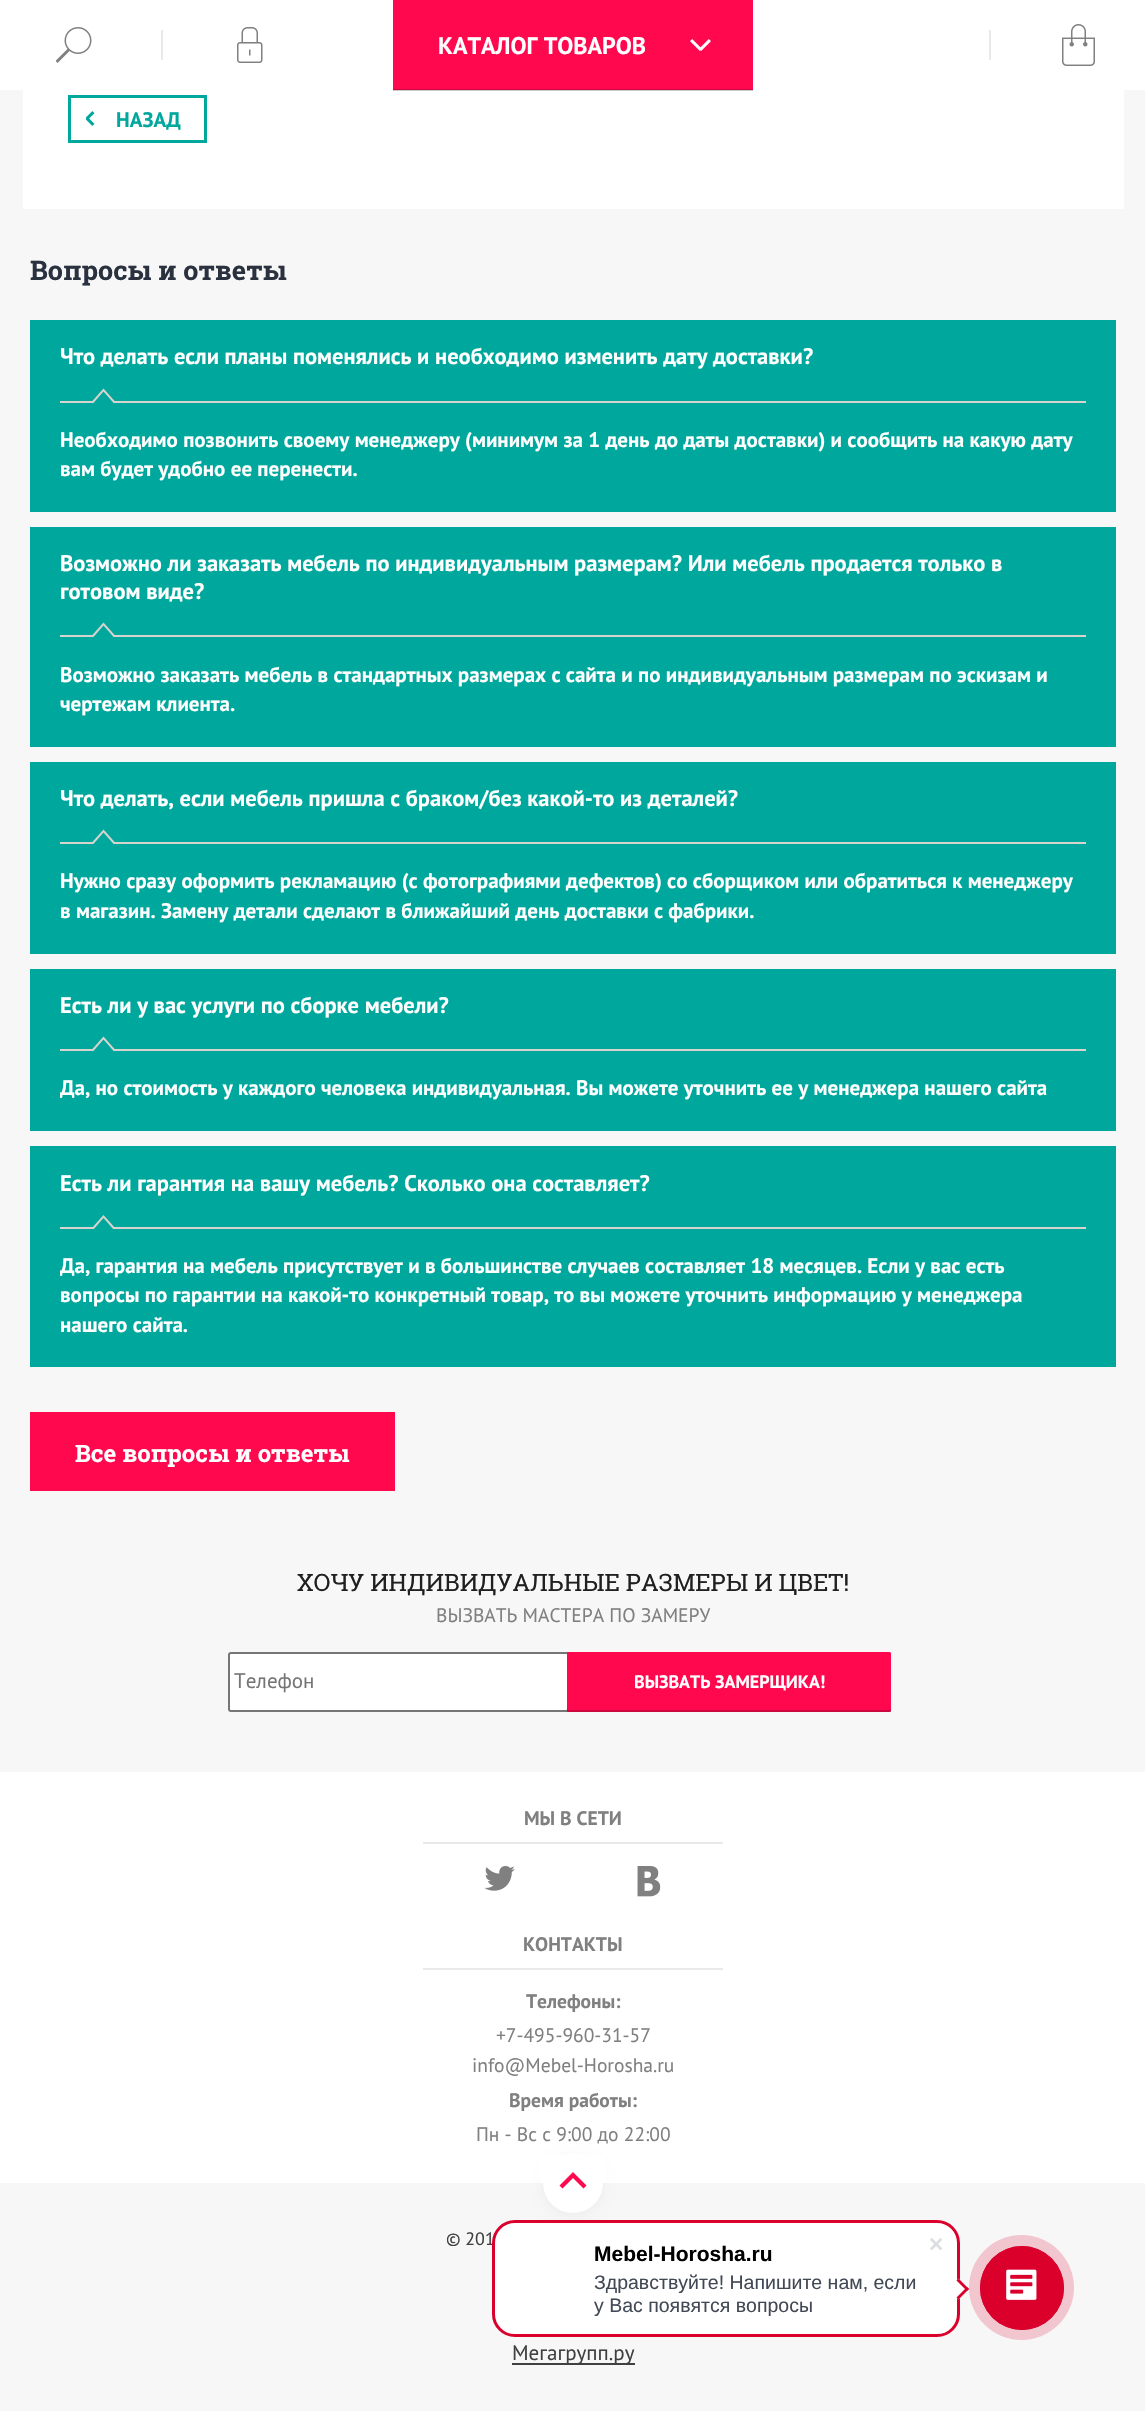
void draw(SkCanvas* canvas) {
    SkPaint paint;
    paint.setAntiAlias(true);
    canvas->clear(0xFFF7F7F7);
    paint.setColor(0xFFFFFFFF);
    canvas->drawRect(SkRect::MakeXYWH(0, 0, 1145, 90), paint);
    canvas->drawImageRect(SkImages::DeferredFromEncodedData(SkData::MakeFromFileName("img1.png")), SkRect::MakeXYWH(56, 27, 36, 36), SkSamplingOptions());
    paint.setColor(0xFFE9E9E9);
    canvas->drawRect(SkRect::MakeXYWH(161, 30, 2, 30), paint);
    canvas->drawImageRect(SkImages::DeferredFromEncodedData(SkData::MakeFromFileName("img2.png")), SkRect::MakeXYWH(237, 27, 26, 36), SkSamplingOptions());
    paint.setColor(0xFFFF084E);
    canvas->drawRect(SkRect::MakeXYWH(393, 0, 360, 90), paint);
    paint.setColor(0xFFFFFFFF);
    canvas->drawRect(SkRect::MakeXYWH(23, 90, 1101, 119), paint);
    paint.setColor(0x33000000);
    canvas->drawRect(SkRect::MakeXYWH(393, 89, 360, 2), paint);
    SkFont font1(fontMgr->matchFamilyStyle("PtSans", SkFontStyle::Bold()), 24);
    font1.setSubpixel(true);
    paint.setColor(0xFFFFFFFF);
    canvas->drawString("КАТАЛОГ ТОВАРОВ", 438, 54, font1, paint);
    canvas->drawImageRect(SkImages::DeferredFromEncodedData(SkData::MakeFromFileName("img3.png")), SkRect::MakeXYWH(690, 39, 21, 12), SkSamplingOptions());
    paint.setColor(0xFFE9E9E9);
    canvas->drawRect(SkRect::MakeXYWH(989, 30, 2, 30), paint);
    canvas->drawImageRect(SkImages::DeferredFromEncodedData(SkData::MakeFromFileName("img4.png")), SkRect::MakeXYWH(1062, 24, 33, 42), SkSamplingOptions());
    paint.setStyle(SkPaint::kStroke_Style);
    paint.setStrokeWidth(3);
    paint.setColor(0xFF00A79D);
    canvas->drawRect(SkRect::MakeXYWH(69.5f, 96.5f, 136, 45), paint);
    canvas->drawImageRect(SkImages::DeferredFromEncodedData(SkData::MakeFromFileName("img5.png")), SkRect::MakeXYWH(86, 111, 9, 15), SkSamplingOptions());
    SkFont font2(fontMgr->matchFamilyStyle("PtSans", SkFontStyle::Bold()), 21);
    font2.setSubpixel(true);
    paint.setStyle(SkPaint::kFill_Style);
    canvas->drawString("НАЗАД", 116, 127, font2, paint);
    SkFont font3(fontMgr->matchFamilyStyle("Roboto Slab", SkFontStyle::Bold()), 27);
    font3.setSubpixel(true);
    paint.setColor(0xFF2A313F);
    canvas->drawString("Вопросы и ответы", 30, 280, font3, paint);
    paint.setColor(0xFF00A79D);
    canvas->drawRect(SkRect::MakeXYWH(30, 320, 1086, 192), paint);
    SkFont font4(fontMgr->matchFamilyStyle("PtSans", SkFontStyle::Bold()), 22.5f);
    font4.setSubpixel(true);
    paint.setColor(0xFFFFFFFF);
    canvas->drawString("Что делать если планы поменялись и необходимо изменить дату доставки?", 60, 364, font4, paint);
    paint.setColor(0xFFD6D4CD);
    canvas->drawRect(SkRect::MakeXYWH(60, 401, 1026, 2), paint);
    canvas->drawPath(SkPathBuilder().moveTo(115.5f, 402).lineTo(91.5f, 402).lineTo(103.5f, 388.5f).close().detach(), paint);
    paint.setColor(0xFF00A79D);
    canvas->drawPath(SkPathBuilder().moveTo(114, 403.5f).lineTo(93, 403.5f).lineTo(103.5f, 391.5f).close().detach(), paint);
    paint.setColor(0xFFFFFFFF);
    canvas->drawString("Необходимо позвонить своему менеджеру (минимум за 1 день до даты доставки) и сообщить на какую дату", 60, 447, font2, paint);
    canvas->drawString("вам будет удобно ее перенести.", 60, 476, font2, paint);
    paint.setColor(0xFF00A79D);
    canvas->drawRect(SkRect::MakeXYWH(30, 527, 1086, 220), paint);
    paint.setColor(0xFFFFFFFF);
    canvas->drawString("Возможно ли заказать мебель по индивидуальным размерам? Или мебель продается только в", 60, 571, font4, paint);
    canvas->drawString("готовом виде?", 60, 599, font4, paint);
    paint.setColor(0xFFD6D4CD);
    canvas->drawRect(SkRect::MakeXYWH(60, 635, 1026, 2), paint);
    canvas->drawPath(SkPathBuilder().moveTo(115.5f, 636).lineTo(91.5f, 636).lineTo(103.5f, 622.5f).close().detach(), paint);
    paint.setColor(0xFF00A79D);
    canvas->drawPath(SkPathBuilder().moveTo(114, 637.5f).lineTo(93, 637.5f).lineTo(103.5f, 625.5f).close().detach(), paint);
    paint.setColor(0xFFFFFFFF);
    canvas->drawString("Возможно заказать мебель в стандартных размерах с сайта и по индивидуальным размерам по эскизам и", 60, 682, font2, paint);
    canvas->drawString("чертежам клиента.", 60, 711, font2, paint);
    paint.setColor(0xFF00A79D);
    canvas->drawRect(SkRect::MakeXYWH(30, 762, 1086, 192), paint);
    paint.setColor(0xFFFFFFFF);
    canvas->drawString("Что делать, если мебель пришла с браком/без какой-то из деталей?", 60, 806, font4, paint);
    paint.setColor(0xFFD6D4CD);
    canvas->drawRect(SkRect::MakeXYWH(60, 842, 1026, 2), paint);
    canvas->drawPath(SkPathBuilder().moveTo(115.5f, 843).lineTo(91.5f, 843).lineTo(103.5f, 829.5f).close().detach(), paint);
    paint.setColor(0xFF00A79D);
    canvas->drawPath(SkPathBuilder().moveTo(114, 844.5f).lineTo(93, 844.5f).lineTo(103.5f, 832.5f).close().detach(), paint);
    paint.setColor(0xFFFFFFFF);
    canvas->drawString("Нужно сразу оформить рекламацию (с фотографиями дефектов) со сборщиком или обратиться к менеджеру", 60, 888, font2, paint);
    canvas->drawString("в магазин. Замену детали сделают в ближайший день доставки с фабрики.", 60, 918, font2, paint);
    paint.setColor(0xFF00A79D);
    canvas->drawRect(SkRect::MakeXYWH(30, 969, 1086, 162), paint);
    paint.setColor(0xFFFFFFFF);
    canvas->drawString("Есть ли у вас услуги по сборке мебели?", 60, 1013, font4, paint);
    paint.setColor(0xFFD6D4CD);
    canvas->drawRect(SkRect::MakeXYWH(60, 1049, 1026, 2), paint);
    canvas->drawPath(SkPathBuilder().moveTo(115.5f, 1050).lineTo(91.5f, 1050).lineTo(103.5f, 1036.5f).close().detach(), paint);
    paint.setColor(0xFF00A79D);
    canvas->drawPath(SkPathBuilder().moveTo(114, 1051.5f).lineTo(93, 1051.5f).lineTo(103.5f, 1039.5f).close().detach(), paint);
    paint.setColor(0xFFFFFFFF);
    canvas->drawString("Да, но стоимость у каждого человека индивидуальная. Вы можете уточнить ее у менеджера нашего сайта", 60, 1095, font2, paint);
    paint.setColor(0xFF00A79D);
    canvas->drawRect(SkRect::MakeXYWH(30, 1146, 1086, 221), paint);
    paint.setColor(0xFFFFFFFF);
    canvas->drawString("Есть ли гарантия на вашу мебель? Сколько она составляет?", 60, 1191, font4, paint);
    paint.setColor(0xFFD6D4CD);
    canvas->drawRect(SkRect::MakeXYWH(60, 1227, 1026, 2), paint);
    canvas->drawPath(SkPathBuilder().moveTo(115.5f, 1228.5f).lineTo(91.5f, 1228.5f).lineTo(103.5f, 1215).close().detach(), paint);
    paint.setColor(0xFF00A79D);
    canvas->drawPath(SkPathBuilder().moveTo(114, 1230).lineTo(93, 1230).lineTo(103.5f, 1218).close().detach(), paint);
    paint.setColor(0xFFFFFFFF);
    canvas->drawString("Да, гарантия на мебель присутствует и в большинстве случаев составляет 18 месяцев. Если у вас есть", 60, 1273, font2, paint);
    canvas->drawString("вопросы по гарантии на какой-то конкретный товар, то вы можете уточнить информацию у менеджера", 60, 1302, font2, paint);
    canvas->drawString("нашего сайта.", 60, 1332, font2, paint);
    paint.setColor(0xFFFF084E);
    canvas->drawRect(SkRect::MakeXYWH(30, 1412, 365, 79), paint);
    SkFont font5(fontMgr->matchFamilyStyle("Roboto Slab", SkFontStyle::Bold()), 24);
    font5.setSubpixel(true);
    paint.setColor(0xFFFFFFFF);
    canvas->drawString("Все вопросы и ответы", 75, 1462, font5, paint);
    SkFont font6(fontMgr->matchFamilyStyle("Roboto Slab", SkFontStyle::Normal()), 24);
    font6.setSubpixel(true);
    paint.setColor(0xFF202020);
    canvas->drawString("ХОЧУ ИНДИВИДУАЛЬНЫЕ РАЗМЕРЫ И ЦВЕТ!", 297, 1591, font6, paint);
    SkFont font7(fontMgr->matchFamilyStyle("PtSans", SkFontStyle::Normal()), 19.5f);
    font7.setSubpixel(true);
    paint.setColor(0xFF808080);
    canvas->drawString("ВЫЗВАТЬ МАСТЕРА ПО ЗАМЕРУ", 436, 1622, font7, paint);
    paint.setColor(0xFFFFFFFF);
    canvas->drawRoundRect(SkRect::MakeXYWH(229, 1653, 357, 58), 2, 2, paint);
    paint.setStyle(SkPaint::kStroke_Style);
    paint.setStrokeWidth(2);
    paint.setColor(0xFF767676);
    canvas->drawRoundRect(SkRect::MakeXYWH(229, 1653, 357, 58), 2, 2, paint);
    SkFont font8(fontMgr->matchFamilyStyle("PtSans", SkFontStyle::Normal()), 21);
    font8.setSubpixel(true);
    paint.setStyle(SkPaint::kFill_Style);
    paint.setColor(0xFF757575);
    canvas->drawString("Телефон", 234, 1688, font8, paint);
    paint.setColor(0xFFFF084E);
    canvas->drawRoundRect(SkRect::MakeXYWH(567, 1652, 324, 60), 1.5f, 1.5f, paint);
    paint.setColor(0x33000000);
    canvas->drawPath(SkPathBuilder().moveTo(567, 1708).cubicTo(567, 1709, 566, 1712, 568, 1712).lineTo(890, 1712).cubicTo(892, 1712, 891, 1709, 891, 1708).lineTo(890, 1710).lineTo(568, 1710).close().detach(), paint);
    SkFont font9(fontMgr->matchFamilyStyle("PtSans", SkFontStyle::Bold()), 18);
    font9.setSubpixel(true);
    paint.setColor(0xFFFFFFFF);
    canvas->drawString("ВЫЗВАТЬ ЗАМЕРЩИКА!", 634, 1688, font9, paint);
    canvas->drawRect(SkRect::MakeXYWH(0, 1772, 1145, 411), paint);
    SkFont font10(fontMgr->matchFamilyStyle("PtSans", SkFontStyle::Bold()), 19.5f);
    font10.setSubpixel(true);
    paint.setColor(0xFF808080);
    canvas->drawString("МЫ В СЕТИ", 524, 1825, font10, paint);
    paint.setColor(0xFFE9E9E9);
    canvas->drawRect(SkRect::MakeXYWH(423, 1842, 300, 2), paint);
    canvas->drawImageRect(SkImages::DeferredFromEncodedData(SkData::MakeFromFileName("img6.png")), SkRect::MakeXYWH(484, 1866, 31, 25), SkSamplingOptions());
    canvas->drawImageRect(SkImages::DeferredFromEncodedData(SkData::MakeFromFileName("img7.png")), SkRect::MakeXYWH(637, 1866, 24, 31), SkSamplingOptions());
    paint.setColor(0xFF808080);
    canvas->drawString("КОНТАКТЫ", 523, 1951, font10, paint);
    paint.setColor(0xFFE9E9E9);
    canvas->drawRect(SkRect::MakeXYWH(423, 1968, 300, 2), paint);
    paint.setColor(0xFF808080);
    canvas->drawString("Телефоны:", 526, 2008, font10, paint);
    canvas->drawString("+7-495-960-31-57", 496, 2042, font7, paint);
    canvas->drawString("info@Mebel-Horosha.ru", 472, 2072, font7, paint);
    canvas->drawString("Время работы:", 509, 2107, font10, paint);
    canvas->drawString("Пн - Вс с 9:00 до 22:00", 476, 2141, font7, paint);
    paint.setColor(0x0A000000);
    paint.setMaskFilter(SkMaskFilter::MakeBlur(kNormal_SkBlurStyle, 6));
    canvas->drawRoundRect(SkRect::MakeXYWH(543, 2156, 60, 60), 30, 30, paint);
    paint.setMaskFilter(nullptr);
    paint.setColor(0xFFFFFFFF);
    canvas->drawCircle(573, 2183, 30, paint);
    canvas->drawRect(SkRect::MakeXYWH(540, 2155, 66, 28), paint);
    paint.setColor(0xFFFF084E);
    canvas->drawPath(SkPathBuilder(SkPathFillType::kEvenOdd).moveTo(586.5f, 2185.5f).lineTo(583.5f, 2188.5f).lineTo(573, 2178).lineTo(562.5f, 2188.5f).lineTo(559.5f, 2185.5f).lineTo(573, 2172).close().detach(), paint);
    SkFont font11(fontMgr->matchFamilyStyle("PtSans", SkFontStyle::Normal()), 18);
    font11.setSubpixel(true);
    paint.setColor(0xFF404040);
    canvas->drawString("© 201", 446, 2245, font11, paint);
    canvas->drawRect(SkRect::MakeXYWH(512, 2363, 123, 2), paint);
    canvas->drawString("Мегагрупп.ру", 512, 2360, font8, paint);
    paint.setColor(0xFFFFFFFF);
    canvas->drawRoundRect(SkRect::MakeXYWH(493.5f, 2221.5f, 465, 114), 21.5f, 21.5f, paint);
    paint.setStyle(SkPaint::kStroke_Style);
    paint.setStrokeWidth(3);
    paint.setColor(0xFFDB002C);
    canvas->drawRoundRect(SkRect::MakeXYWH(493.5f, 2221.5f, 465, 114), 21.5f, 21.5f, paint);
    SkFont font12(fontMgr->matchFamilyStyle("Liberation Sans", SkFontStyle::Bold()), 21);
    font12.setSubpixel(true);
    paint.setStyle(SkPaint::kFill_Style);
    paint.setColor(0xFF000000);
    canvas->drawString("Mebel-Horosha.ru", 594, 2261, font12, paint);
    SkFont font13(fontMgr->matchFamilyStyle("Liberation Sans", SkFontStyle::Normal()), 19.5f);
    font13.setSubpixel(true);
    paint.setColor(0xFF424956);
    canvas->drawString("Здравствуйте! Напишите нам, если", 594, 2289, font13, paint);
    canvas->drawString("у Вас появятся вопросы", 594, 2312, font13, paint);
    canvas->drawImageRect(SkImages::DeferredFromEncodedData(SkData::MakeFromFileName("img8.png")), SkRect::MakeXYWH(930, 2238, 13, 13), SkSamplingOptions());
    paint.setColor(0xFFFFFFFF);
    canvas->drawPath(SkPathBuilder().moveTo(948, 2289).lineTo(958.5f, 2278.5f).lineTo(969, 2289).lineTo(958.5f, 2299.5f).close().detach(), paint);
    paint.setColor(0xFFDB002C);
    canvas->drawPath(SkPathBuilder().moveTo(956.5f, 2280.5f).lineTo(958.5f, 2278.5f).lineTo(969, 2289).lineTo(967, 2291).close().detach(), paint);
    canvas->drawPath(SkPathBuilder().moveTo(956.5f, 2297.5f).lineTo(967, 2287).lineTo(969, 2289).lineTo(958.5f, 2299.5f).close().detach(), paint);
    paint.setColor(0xFFF1C6CE);
    canvas->drawCircle(1021.5f, 2287.5f, 52.5f, paint);
    paint.setStyle(SkPaint::kStroke_Style);
    paint.setStrokeWidth(1);
    paint.setColor(0xFFDB002C);
    canvas->drawCircle(1022, 2288, 41.5f, paint);
    paint.setStyle(SkPaint::kFill_Style);
    canvas->drawCircle(1022, 2288, 42, paint);
    canvas->drawImageRect(SkImages::DeferredFromEncodedData(SkData::MakeFromFileName("img9.png")), SkRect::MakeXYWH(1006, 2269, 31, 31), SkSamplingOptions());
}
